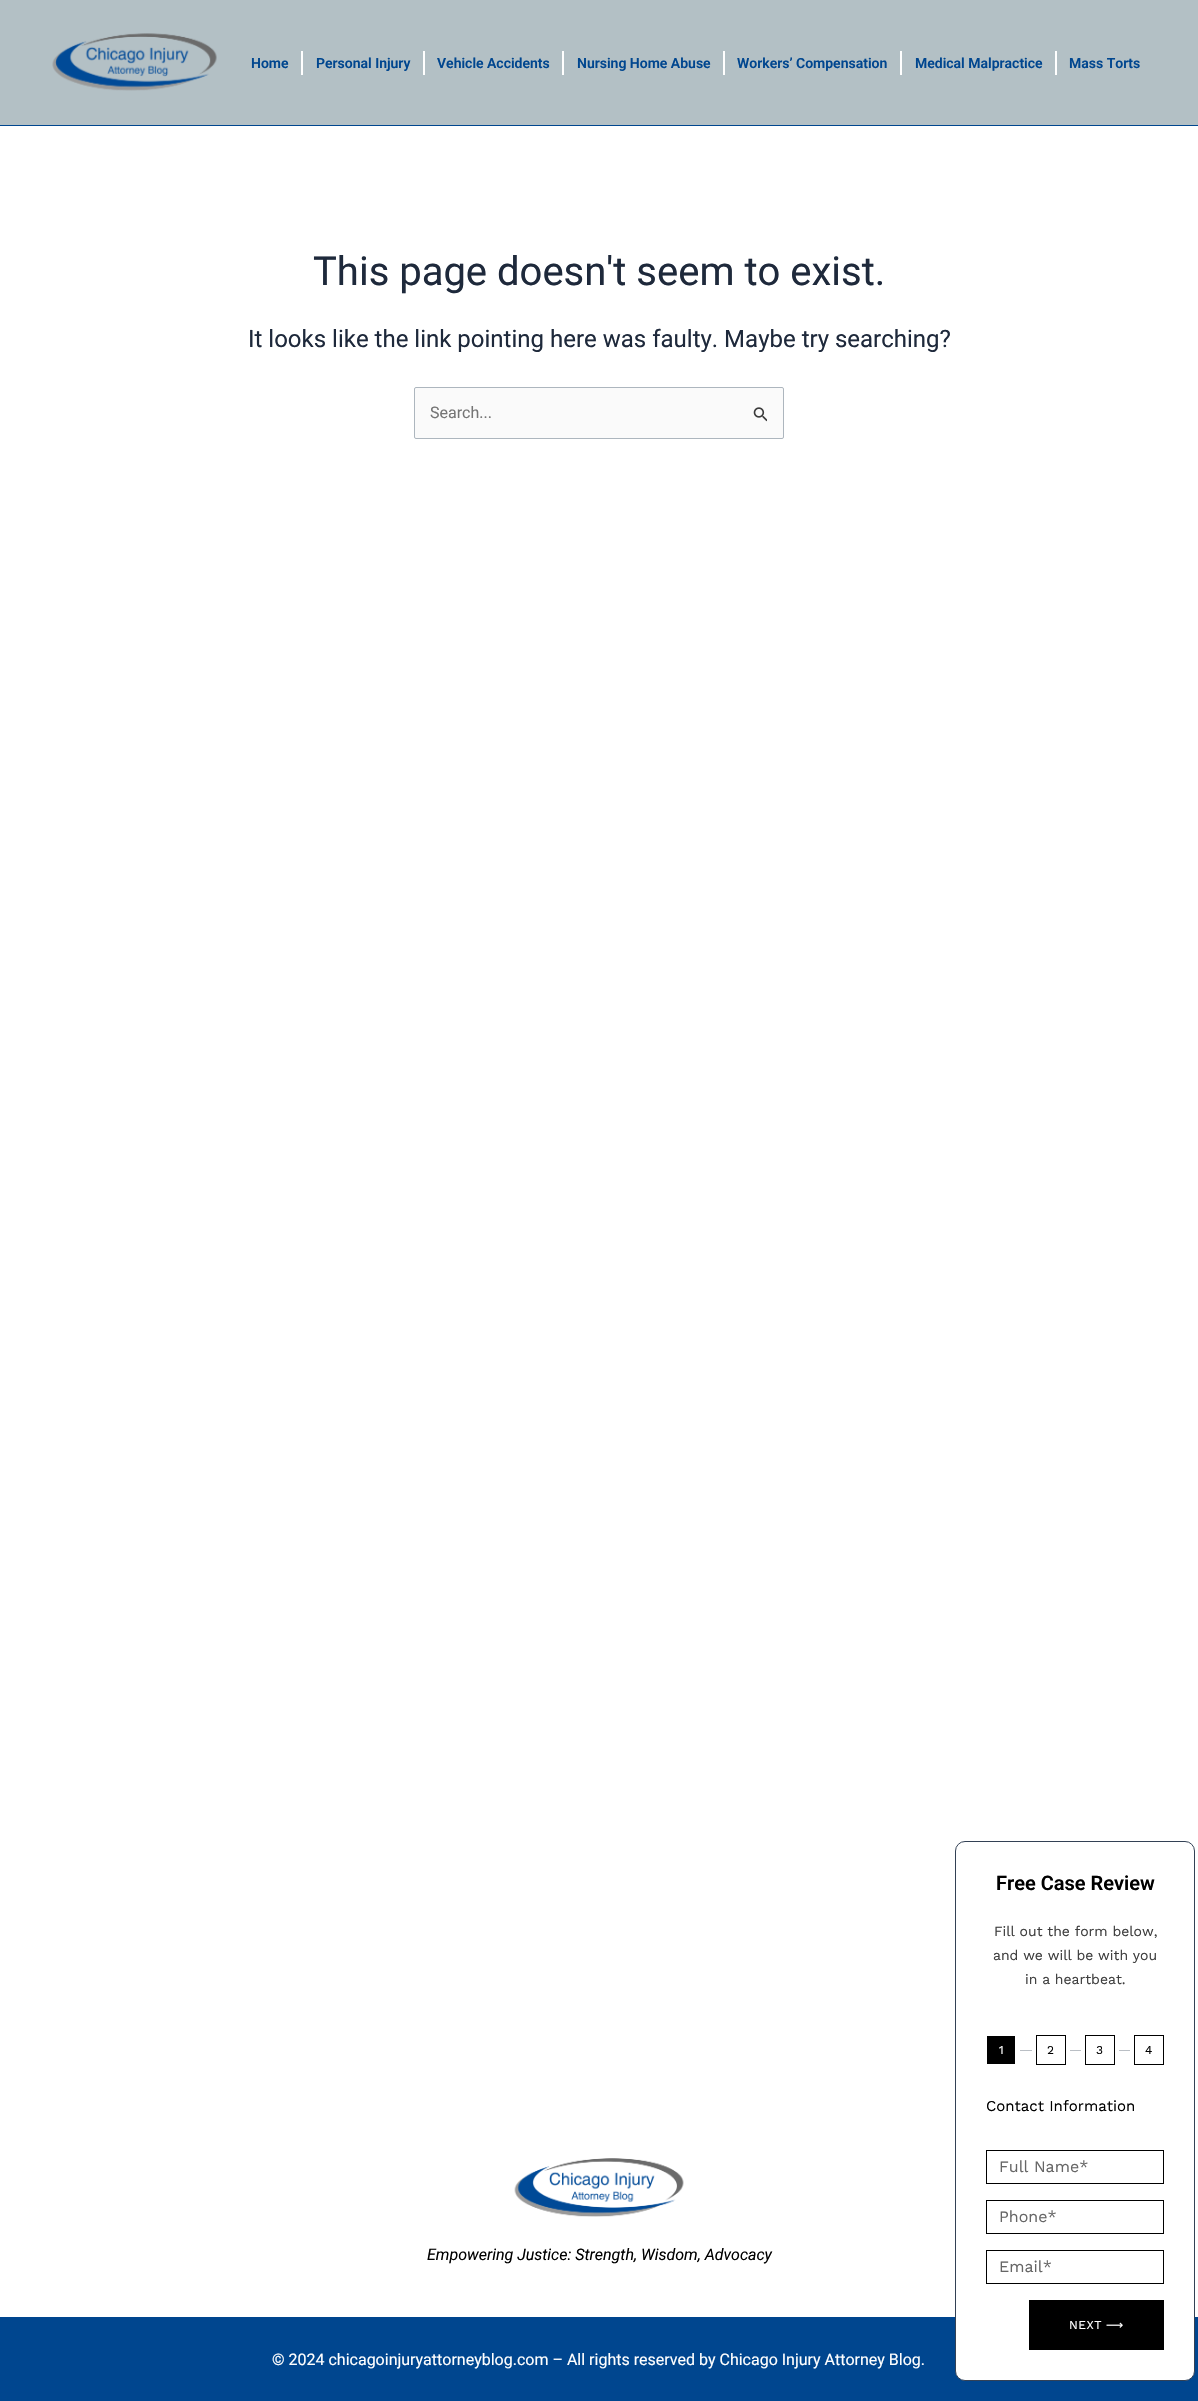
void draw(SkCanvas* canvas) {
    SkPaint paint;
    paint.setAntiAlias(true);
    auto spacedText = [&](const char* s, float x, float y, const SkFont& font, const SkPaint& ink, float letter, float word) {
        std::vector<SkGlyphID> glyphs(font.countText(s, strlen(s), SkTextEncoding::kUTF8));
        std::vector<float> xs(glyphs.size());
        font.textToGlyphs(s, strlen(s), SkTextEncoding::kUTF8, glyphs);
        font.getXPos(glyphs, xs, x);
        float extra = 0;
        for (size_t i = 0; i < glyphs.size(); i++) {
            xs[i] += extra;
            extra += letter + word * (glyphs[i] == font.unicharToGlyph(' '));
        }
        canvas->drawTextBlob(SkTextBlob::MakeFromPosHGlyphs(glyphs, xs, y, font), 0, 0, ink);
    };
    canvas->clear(0xFFFFFFFF);
    paint.setColor(0xFFB3C0C5);
    canvas->drawRect(SkRect::MakeXYWH(0, 0, 1198, 125), paint);
    paint.setColor(0xFF00468F);
    canvas->drawRect(SkRect::MakeXYWH(0, 125, 1198, 1), paint);
    canvas->drawImageRect(SkImages::DeferredFromEncodedData(SkData::MakeFromFileName("img1.png")), SkRect::MakeXYWH(52, 33, 165, 58), SkSamplingOptions());
    SkFont font1(fontMgr->matchFamilyStyle("Roboto", SkFontStyle(600, SkFontStyle::kNormal_Width, SkFontStyle::kUpright_Slant)), 14);
    font1.setSubpixel(true);
    canvas->drawString("Home", 251, 68, font1, paint);
    paint.setColor(0xFFFFFFFF);
    canvas->drawRect(SkRect::MakeXYWH(301, 51, 2, 24), paint);
    paint.setColor(0xFF00468F);
    canvas->drawString("Personal Injury", 316, 68, font1, paint);
    paint.setColor(0xFFFFFFFF);
    canvas->drawRect(SkRect::MakeXYWH(423, 51, 2, 24), paint);
    paint.setColor(0xFF00468F);
    canvas->drawString("Vehicle Accidents", 437, 68, font1, paint);
    paint.setColor(0xFFFFFFFF);
    canvas->drawRect(SkRect::MakeXYWH(562, 51, 2, 24), paint);
    paint.setColor(0xFF00468F);
    canvas->drawString("Nursing Home Abuse", 577, 68, font1, paint);
    paint.setColor(0xFFFFFFFF);
    canvas->drawRect(SkRect::MakeXYWH(723, 51, 2, 24), paint);
    paint.setColor(0xFF00468F);
    canvas->drawString("Workers’ Compensation", 737, 68, font1, paint);
    paint.setColor(0xFFFFFFFF);
    canvas->drawRect(SkRect::MakeXYWH(900, 51, 2, 24), paint);
    paint.setColor(0xFF00468F);
    canvas->drawString("Medical Malpractice", 915, 68, font1, paint);
    paint.setColor(0xFFFFFFFF);
    canvas->drawRect(SkRect::MakeXYWH(1055, 51, 2, 24), paint);
    paint.setColor(0xFF00468F);
    canvas->drawString("Mass Torts", 1069, 68, font1, paint);
    canvas->drawRect(SkRect::MakeXYWH(0, 2317, 1198, 84), paint);
    paint.setColor(0xFFFFFFFF);
    canvas->drawRoundRect(SkRect::MakeXYWH(955.5f, 1841.5f, 239, 539), 9.5f, 9.5f, paint);
    paint.setStyle(SkPaint::kStroke_Style);
    paint.setStrokeWidth(1);
    paint.setColor(0xFF334155);
    canvas->drawRoundRect(SkRect::MakeXYWH(955.5f, 1841.5f, 239, 539), 9.5f, 9.5f, paint);
    SkFont font2(fontMgr->matchFamilyStyle("Roboto", SkFontStyle(600, SkFontStyle::kNormal_Width, SkFontStyle::kUpright_Slant)), 20);
    font2.setSubpixel(true);
    paint.setStyle(SkPaint::kFill_Style);
    paint.setColor(0xFF000000);
    canvas->drawString("Free Case Review", 996, 1890, font2, paint);
    SkFont font3(fontMgr->matchFamilyStyle("Work Sans", SkFontStyle::Normal()), 14);
    font3.setSubpixel(true);
    paint.setColor(0xFF3E3E3E);
    canvas->drawString("Fill out the form below,", 994, 1936, font3, paint);
    canvas->drawString("and we will be with you", 993, 1960, font3, paint);
    canvas->drawString("in a heartbeat.", 1025, 1984, font3, paint);
    paint.setColor(0xFF000000);
    canvas->drawRect(SkRect::MakeXYWH(987, 2036, 28, 28), paint);
    SkFont font4(fontMgr->matchFamilyStyle("Work Sans", SkFontStyle::Normal()), 12);
    font4.setSubpixel(true);
    paint.setColor(0xFFFFFFFF);
    spacedText("1", 999, 2054, font4, paint, 0.5f, 0);
    paint.setColor(0xFFBABFC5);
    canvas->drawRect(SkRect::MakeXYWH(1020, 2050, 12, 1), paint);
    paint.setStyle(SkPaint::kStroke_Style);
    paint.setColor(0xFF000000);
    canvas->drawRect(SkRect::MakeXYWH(1036.5f, 2035.5f, 29, 29), paint);
    paint.setStyle(SkPaint::kFill_Style);
    spacedText("2", 1047, 2054, font4, paint, 0.5f, 0);
    paint.setColor(0xFFBABFC5);
    canvas->drawRect(SkRect::MakeXYWH(1070, 2050, 11, 1), paint);
    paint.setStyle(SkPaint::kStroke_Style);
    paint.setColor(0xFF000000);
    canvas->drawRect(SkRect::MakeXYWH(1085.5f, 2035.5f, 29, 29), paint);
    paint.setStyle(SkPaint::kFill_Style);
    spacedText("3", 1096, 2054, font4, paint, 0.5f, 0);
    paint.setColor(0xFFBABFC5);
    canvas->drawRect(SkRect::MakeXYWH(1119, 2050, 11, 1), paint);
    paint.setStyle(SkPaint::kStroke_Style);
    paint.setColor(0xFF000000);
    canvas->drawRect(SkRect::MakeXYWH(1134.5f, 2035.5f, 29, 29), paint);
    paint.setStyle(SkPaint::kFill_Style);
    spacedText("4", 1145, 2054, font4, paint, 0.5f, 0);
    SkFont font5(fontMgr->matchFamilyStyle("Work Sans", SkFontStyle::Normal()), 15);
    font5.setSubpixel(true);
    canvas->drawString("Contact Information", 986, 2111, font5, paint);
    paint.setStyle(SkPaint::kStroke_Style);
    canvas->drawRect(SkRect::MakeXYWH(986.5f, 2150.5f, 177, 33), paint);
    SkFont font6(fontMgr->matchFamilyStyle("Work Sans", SkFontStyle::Normal()), 16);
    font6.setSubpixel(true);
    paint.setStyle(SkPaint::kFill_Style);
    paint.setColor(0xFF666666);
    canvas->drawString("Full Name*", 999, 2172, font6, paint);
    paint.setStyle(SkPaint::kStroke_Style);
    paint.setColor(0xFF000000);
    canvas->drawRect(SkRect::MakeXYWH(986.5f, 2200.5f, 177, 33), paint);
    paint.setStyle(SkPaint::kFill_Style);
    paint.setColor(0xFF666666);
    canvas->drawString("Phone*", 999, 2222, font6, paint);
    paint.setStyle(SkPaint::kStroke_Style);
    paint.setColor(0xFF000000);
    canvas->drawRect(SkRect::MakeXYWH(986.5f, 2250.5f, 177, 33), paint);
    paint.setStyle(SkPaint::kFill_Style);
    paint.setColor(0xFF666666);
    canvas->drawString("Email*", 999, 2272, font6, paint);
    paint.setColor(0xFF000000);
    canvas->drawRect(SkRect::MakeXYWH(1029, 2300, 135, 50), paint);
    paint.setColor(0xFFFFFFFF);
    spacedText("NEXT", 1069, 2329, font4, paint, 0.5f, 0);
    SkFont font7(fontMgr->matchFamilyStyle("DejaVu Sans", SkFontStyle::Normal()), 12);
    font7.setSubpixel(true);
    spacedText("⟶", 1106, 2329, font7, paint, 0.5f, 0);
    SkFont font8(fontMgr->matchFamilyStyle("Roboto", SkFontStyle::Normal()), 40);
    font8.setSubpixel(true);
    paint.setColor(0xFF1E293B);
    canvas->drawString("This page doesn't seem to exist.", 313, 285, font8, paint);
    SkFont font9(fontMgr->matchFamilyStyle("Roboto", SkFontStyle::Normal()), 24);
    font9.setSubpixel(true);
    canvas->drawString("It looks like the link pointing here was faulty. Maybe try searching?", 248, 347, font9, paint);
    paint.setColor(0xFFFAFAFA);
    canvas->drawRoundRect(SkRect::MakeXYWH(414.5f, 387.5f, 369, 51), 1.5f, 1.5f, paint);
    paint.setStyle(SkPaint::kStroke_Style);
    paint.setColor(0xFFADB6BE);
    canvas->drawRoundRect(SkRect::MakeXYWH(414.5f, 387.5f, 369, 51), 1.5f, 1.5f, paint);
    SkFont font10(fontMgr->matchFamilyStyle("Roboto", SkFontStyle::Normal()), 16);
    font10.setSubpixel(true);
    paint.setStyle(SkPaint::kFill_Style);
    paint.setColor(0xFF757575);
    canvas->drawString("Search...", 430, 418, font10, paint);
    canvas->drawImageRect(SkImages::DeferredFromEncodedData(SkData::MakeFromFileName("img2.png")), SkRect::MakeXYWH(753, 407, 14, 15), SkSamplingOptions());
    canvas->drawImageRect(SkImages::DeferredFromEncodedData(SkData::MakeFromFileName("img3.png")), SkRect::MakeXYWH(514, 2158, 170, 59), SkSamplingOptions());
    SkFont font11(fontMgr->matchFamilyStyle("Roboto", SkFontStyle::Italic()), 16);
    font11.setSubpixel(true);
    paint.setColor(0xFF000000);
    canvas->drawString("Empowering Justice: Strength, Wisdom, Advocacy", 427, 2260, font11, paint);
    paint.setColor(0xFFFFFFFF);
    canvas->drawString("© 2024 chicagoinjuryattorneyblog.com – All rights reserved by Chicago Injury Attorney Blog.", 272, 2365, font10, paint);
}
